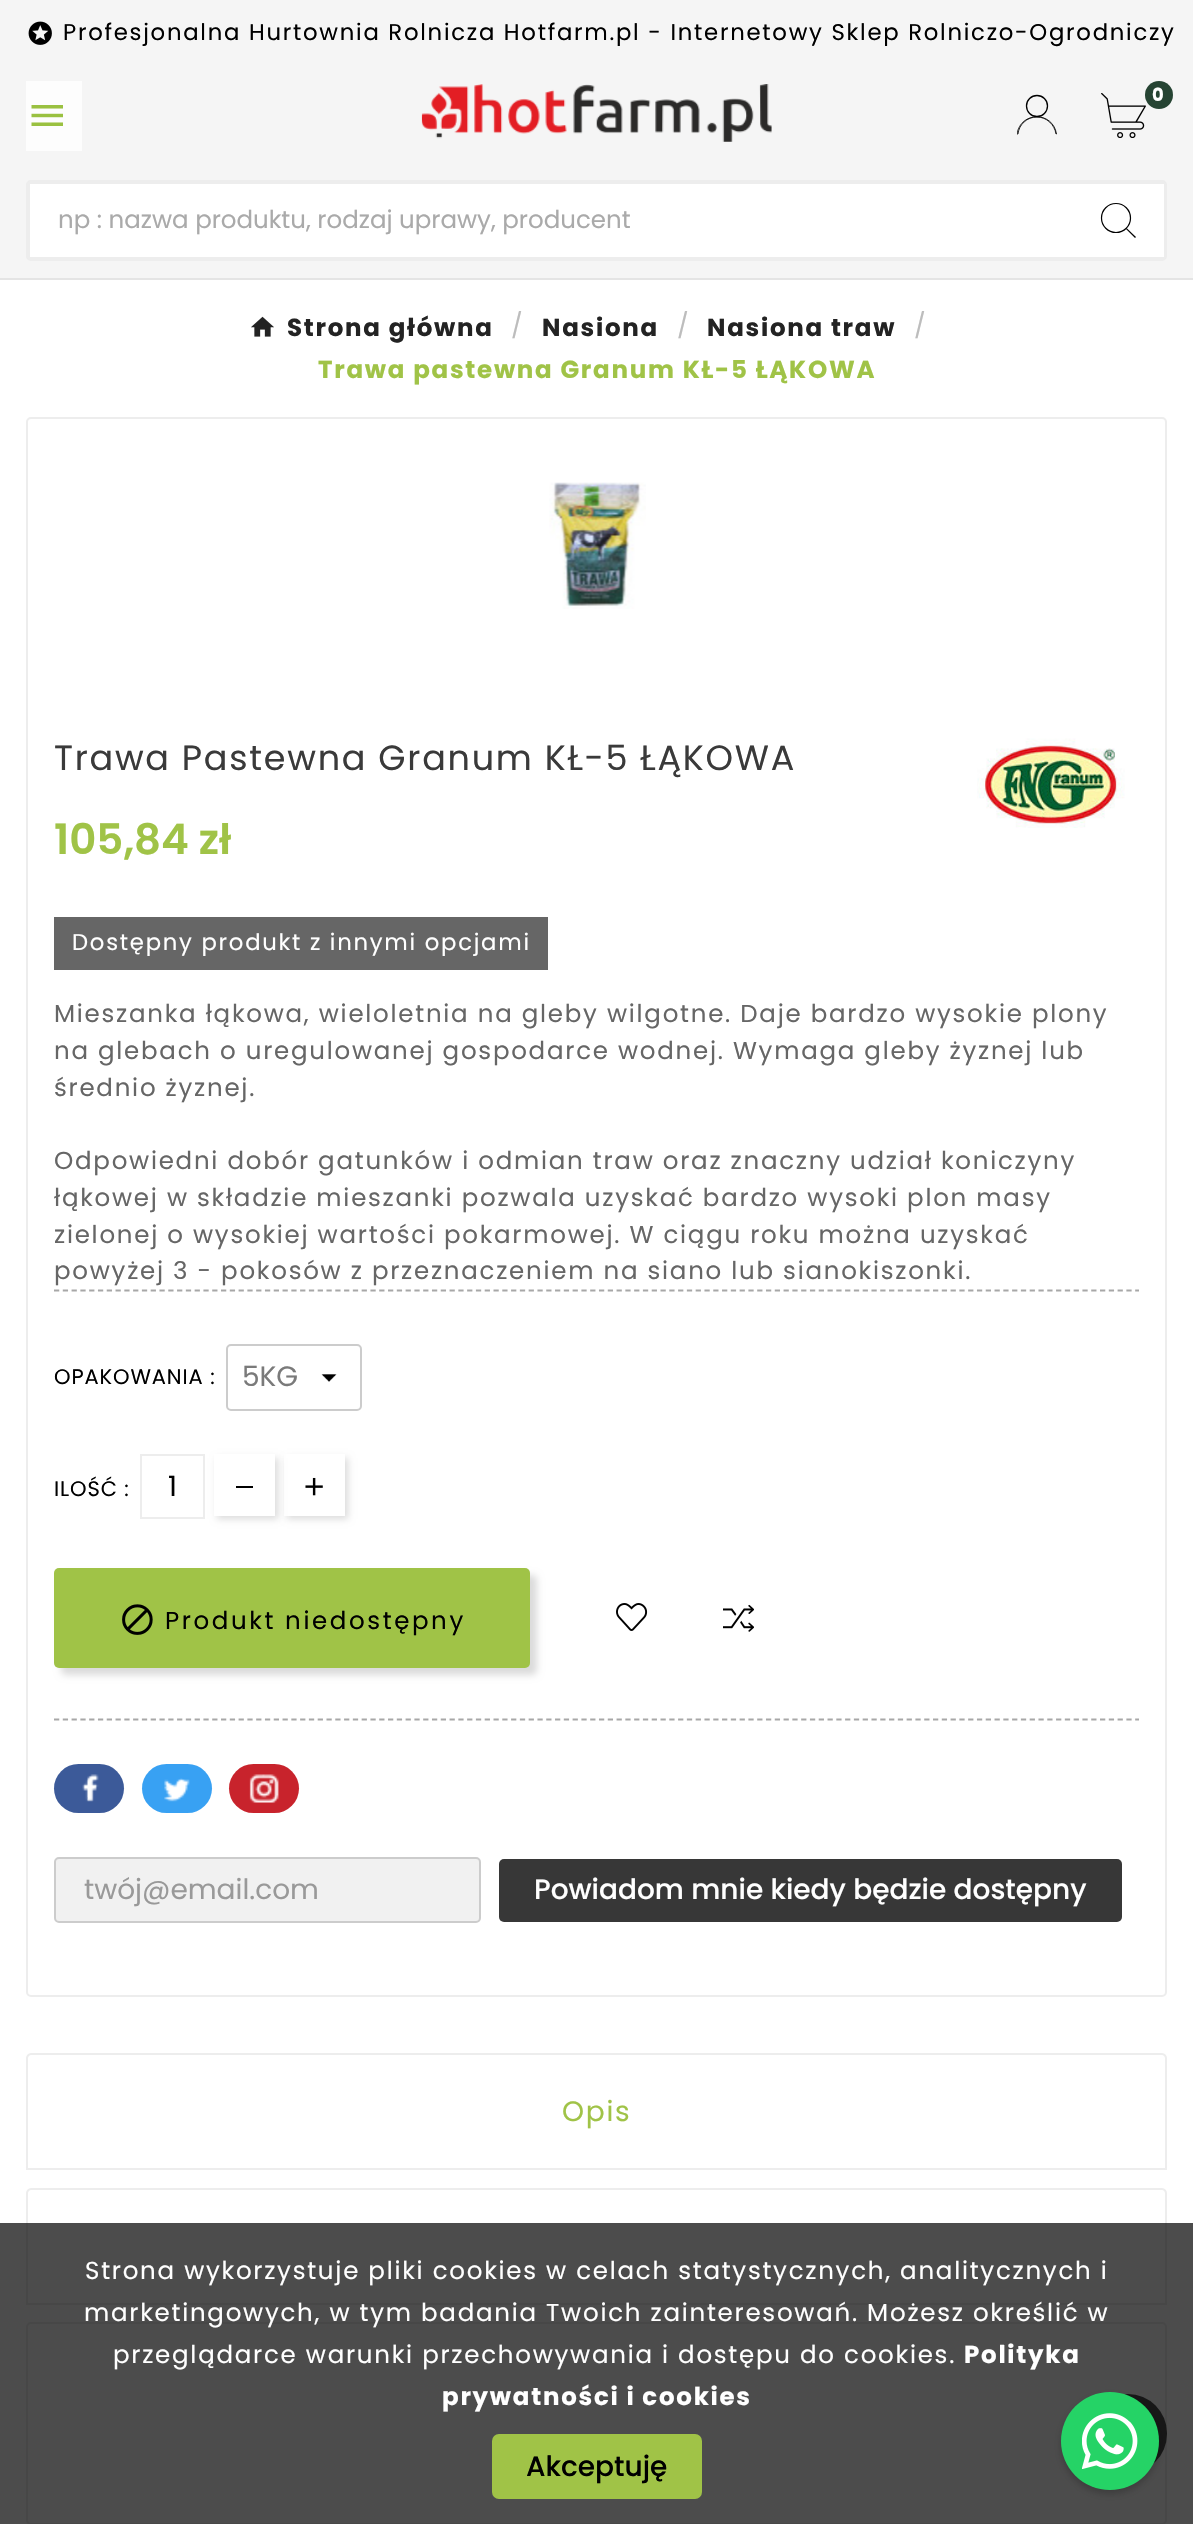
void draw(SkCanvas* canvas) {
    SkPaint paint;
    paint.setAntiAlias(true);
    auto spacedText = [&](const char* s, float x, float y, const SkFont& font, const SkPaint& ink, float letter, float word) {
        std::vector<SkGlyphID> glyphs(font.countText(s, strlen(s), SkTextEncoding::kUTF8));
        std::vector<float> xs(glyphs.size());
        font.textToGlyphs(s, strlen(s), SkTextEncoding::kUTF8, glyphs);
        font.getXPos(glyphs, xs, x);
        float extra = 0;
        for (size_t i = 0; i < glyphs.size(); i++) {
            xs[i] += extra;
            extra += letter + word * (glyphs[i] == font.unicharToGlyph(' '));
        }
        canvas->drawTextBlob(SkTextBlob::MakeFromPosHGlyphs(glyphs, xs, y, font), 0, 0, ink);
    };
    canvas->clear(0xFFF5F5F5);
    paint.setColor(0xFFE4E4E4);
    canvas->drawRect(SkRect::MakeXYWH(0, 278, 1193, 2), paint);
    canvas->drawImageRect(SkImages::DeferredFromEncodedData(SkData::MakeFromFileName("img1.png")), SkRect::MakeXYWH(28, 21, 24, 24), SkSamplingOptions());
    SkFont font1(fontMgr->matchFamilyStyle("Poppins", SkFontStyle::Normal()), 22.75f);
    font1.setSubpixel(true);
    paint.setColor(0xFF000000);
    spacedText("Profesjonalna Hurtownia Rolnicza Hotfarm.pl - Internetowy Sklep Rolniczo-Ogrodniczy", 63, 40, font1, paint, 1.75f, 0);
    paint.setColor(0xFFFDFDFD);
    canvas->drawRect(SkRect::MakeXYWH(26, 81, 56, 70), paint);
    canvas->drawImageRect(SkImages::DeferredFromEncodedData(SkData::MakeFromFileName("img2.png")), SkRect::MakeXYWH(31, 105, 32, 21), SkSamplingOptions());
    canvas->drawImageRect(SkImages::DeferredFromEncodedData(SkData::MakeFromFileName("img3.png")), SkRect::MakeXYWH(421, 84, 351, 58), SkSamplingOptions());
    canvas->save();
    canvas->clipRect(SkRect::MakeXYWH(1017, 95, 40, 40));
    paint.setStyle(SkPaint::kStroke_Style);
    paint.setStrokeWidth(0.8f);
    paint.setColor(0xFF000000);
    canvas->drawPath(SkPathBuilder().moveTo(1037, 117).cubicTo(1046.5f, 117, 1054.5f, 124.5f, 1056, 134).lineTo(1056.5f, 134).cubicTo(1053, 111, 1020.5f, 111, 1017, 134).lineTo(1018, 134).cubicTo(1019, 124.5f, 1027, 117, 1037, 117).close().detach(), paint);
    canvas->restore();
    paint.setStrokeWidth(1.3f);
    canvas->drawCircle(1037, 106, 10.5f, paint);
    canvas->drawImageRect(SkImages::DeferredFromEncodedData(SkData::MakeFromFileName("img4.png")), SkRect::MakeXYWH(1101, 93, 45, 45), SkSamplingOptions());
    paint.setStyle(SkPaint::kFill_Style);
    paint.setColor(0xFF264433);
    canvas->drawCircle(1159, 95, 14, paint);
    SkFont font2(fontMgr->matchFamilyStyle("Poppins", SkFontStyle::Bold()), 18);
    font2.setSubpixel(true);
    paint.setColor(0xFFFFFFFF);
    spacedText("0", 1152, 101, font2, paint, 1.75f, 0);
    canvas->drawRoundRect(SkRect::MakeXYWH(26, 180, 1141, 81), 5, 5, paint);
    paint.setStyle(SkPaint::kStroke_Style);
    paint.setStrokeWidth(4);
    paint.setColor(0x12000000);
    canvas->drawRoundRect(SkRect::MakeXYWH(28, 182, 1137, 77), 3, 3, paint);
    paint.setStyle(SkPaint::kFill_Style);
    paint.setColor(0xFFFFFFFF);
    canvas->drawRect(SkRect::MakeXYWH(30, 184, 1, 73), paint);
    SkFont font3(fontMgr->matchFamilyStyle("Poppins", SkFontStyle::Normal()), 24.5f);
    font3.setSubpixel(true);
    paint.setColor(0xFFAAAAAA);
    canvas->drawString("np : nazwa produktu, rodzaj uprawy, producent", 58, 228, font3, paint);
    paint.setColor(0xFFFFFFFF);
    canvas->drawRect(SkRect::MakeXYWH(1162, 184, 2, 73), paint);
    paint.setColor(0xFF000000);
    canvas->drawPath(SkPathBuilder().moveTo(1135, 238).lineTo(1126, 229).lineTo(1126.5f, 228).lineTo(1136, 237).close().detach(), paint);
    paint.setStyle(SkPaint::kStroke_Style);
    paint.setStrokeWidth(1.2f);
    canvas->drawCircle(1116, 218, 14.5f, paint);
    paint.setStyle(SkPaint::kFill_Style);
    paint.setColor(0xFFFFFFFF);
    canvas->drawRect(SkRect::MakeXYWH(0, 280, 1193, 2244), paint);
    canvas->drawImageRect(SkImages::DeferredFromEncodedData(SkData::MakeFromFileName("img5.png")), SkRect::MakeXYWH(251, 316, 23, 21), SkSamplingOptions());
    SkFont font4(fontMgr->matchFamilyStyle("Poppins", SkFontStyle::Bold()), 24.5f);
    font4.setSubpixel(true);
    paint.setColor(0xFF232323);
    spacedText("Strona główna", 287, 336, font4, paint, 1.75f, 0);
    paint.setColor(0xFFBDBDBD);
    spacedText("/", 511, 334, font3, paint, 1.75f, 0);
    paint.setColor(0xFF232323);
    spacedText("Nasiona", 542, 336, font4, paint, 1.75f, 0);
    paint.setColor(0xFFBDBDBD);
    spacedText("/", 677, 334, font3, paint, 1.75f, 0);
    paint.setColor(0xFF232323);
    spacedText("Nasiona traw", 707, 336, font4, paint, 1.75f, 0);
    paint.setColor(0xFFBDBDBD);
    spacedText("/", 914, 334, font3, paint, 1.75f, 0);
    paint.setColor(0xFFA0C347);
    spacedText("Trawa pastewna Granum KŁ-5 ŁĄKOWA", 318, 378, font4, paint, 1.75f, 0);
    paint.setStyle(SkPaint::kStroke_Style);
    paint.setStrokeWidth(2);
    paint.setColor(0xFFEDEDED);
    canvas->drawRoundRect(SkRect::MakeXYWH(27, 418, 1139, 1578), 4, 4, paint);
    canvas->drawImageRect(SkImages::DeferredFromEncodedData(SkData::MakeFromFileName("img6.png")), SkRect::MakeXYWH(549, 482, 97, 127), SkSamplingOptions());
    SkFont font5(fontMgr->matchFamilyStyle("Poppins", SkFontStyle::Normal()), 35);
    font5.setSubpixel(true);
    paint.setStyle(SkPaint::kFill_Style);
    paint.setColor(0xFF3A3A3A);
    spacedText("Trawa Pastewna Granum KŁ-5 ŁĄKOWA", 54, 770, font5, paint, 1.75f, 0);
    canvas->drawImageRect(SkImages::DeferredFromEncodedData(SkData::MakeFromFileName("img7.png")), SkRect::MakeXYWH(977, 738, 148, 90), SkSamplingOptions());
    SkFont font6(fontMgr->matchFamilyStyle("Poppins", SkFontStyle(600, SkFontStyle::kNormal_Width, SkFontStyle::kUpright_Slant)), 42);
    font6.setSubpixel(true);
    paint.setColor(0xFFA0C347);
    canvas->drawString("105,84 zł", 54, 854, font6, paint);
    paint.setColor(0xFF666666);
    canvas->drawRect(SkRect::MakeXYWH(54, 917, 494, 53), paint);
    paint.setColor(0xFFFFFFFF);
    spacedText("Dostępny produkt z innymi opcjami", 72, 950, font1, paint, 1.75f, 0);
    paint.setColor(0xFF666666);
    spacedText("Mieszanka łąkowa, wieloletnia na gleby wilgotne. Daje bardzo wysokie plony", 54, 1022, font3, paint, 1.75f, 0);
    spacedText("na glebach o uregulowanej gospodarce wodnej. Wymaga gleby żyznej lub", 54, 1059, font3, paint, 1.75f, 0);
    spacedText("średnio żyznej.", 54, 1096, font3, paint, 1.75f, 0);
    spacedText("Odpowiedni dobór gatunków i odmian traw oraz znaczny udział koniczyny", 54, 1169, font3, paint, 1.75f, 0);
    spacedText("łąkowej w składzie mieszanki pozwala uzyskać bardzo wysoki plon masy", 54, 1206, font3, paint, 1.75f, 0);
    spacedText("zielonej o wysokiej wartości pokarmowej. W ciągu roku można uzyskać", 54, 1243, font3, paint, 1.75f, 0);
    spacedText("powyżej 3 - pokosów z przeznaczeniem na siano lub sianokiszonki.", 54, 1279, font3, paint, 1.75f, 0);
    paint.setStyle(SkPaint::kStroke_Style);
    paint.setStrokeWidth(1.8f);
    paint.setColor(0xFFA7A7A7);
    paint.setPathEffect(SkDashPathEffect::Make({{5.25f, 3.54f}}, 0));
    canvas->drawPath(SkPathBuilder().moveTo(54, 1290.5f).lineTo(1139, 1290.5f).detach(), paint);
    paint.setPathEffect(nullptr);
    SkFont font7(fontMgr->matchFamilyStyle("Poppins", SkFontStyle::Normal()), 21);
    font7.setSubpixel(true);
    paint.setStyle(SkPaint::kFill_Style);
    paint.setColor(0xFF000000);
    spacedText("OPAKOWANIA :", 54, 1384, font7, paint, 0.9f, 0);
    canvas->drawImageRect(SkImages::DeferredFromEncodedData(SkData::MakeFromFileName("img8.png")), SkRect::MakeXYWH(321, 1374, 16, 8), SkSamplingOptions());
    paint.setStyle(SkPaint::kStroke_Style);
    paint.setStrokeWidth(2);
    paint.setColor(0xFFCCCCCC);
    canvas->drawRoundRect(SkRect::MakeXYWH(227, 1345, 134, 65), 4, 4, paint);
    SkFont font8(fontMgr->matchFamilyStyle("Poppins", SkFontStyle::Normal()), 28);
    font8.setSubpixel(true);
    paint.setStyle(SkPaint::kFill_Style);
    paint.setColor(0xFF7A7A7A);
    canvas->drawString("5KG", 242, 1386, font8, paint);
    paint.setColor(0xFF000000);
    spacedText("ILOŚĆ :", 54, 1496, font7, paint, 0.9f, 0);
    paint.setStyle(SkPaint::kStroke_Style);
    paint.setColor(0xFFEDEDED);
    canvas->drawRect(SkRect::MakeXYWH(141, 1455, 63, 63), paint);
    paint.setStyle(SkPaint::kFill_Style);
    paint.setColor(0xFF000000);
    canvas->drawString("1", 168, 1496, font8, paint);
    paint.setColor(0x24000000);
    paint.setMaskFilter(SkMaskFilter::MakeBlur(kNormal_SkBlurStyle, 3.5f));
    canvas->drawRect(SkRect::MakeXYWH(287, 1458, 61, 61), paint);
    paint.setMaskFilter(nullptr);
    paint.setColor(0xFFFFFFFF);
    canvas->drawRect(SkRect::MakeXYWH(284, 1454, 61, 62), paint);
    paint.setColor(0x24000000);
    paint.setMaskFilter(SkMaskFilter::MakeBlur(kNormal_SkBlurStyle, 3.5f));
    canvas->drawRect(SkRect::MakeXYWH(217, 1458, 61, 61), paint);
    paint.setMaskFilter(nullptr);
    paint.setColor(0xFFFFFFFF);
    canvas->drawRect(SkRect::MakeXYWH(214, 1454, 61, 62), paint);
    paint.setColor(0xFF000000);
    canvas->drawRect(SkRect::MakeXYWH(236, 1486, 17, 2), paint);
    canvas->drawImageRect(SkImages::DeferredFromEncodedData(SkData::MakeFromFileName("img9.png")), SkRect::MakeXYWH(305, 1477, 18, 19), SkSamplingOptions());
    paint.setStyle(SkPaint::kStroke_Style);
    paint.setStrokeWidth(1.8f);
    paint.setColor(0xFFA7A7A7);
    paint.setPathEffect(SkDashPathEffect::Make({{5.25f, 3.54f}}, 0));
    canvas->drawPath(SkPathBuilder().moveTo(54, 1719.5f).lineTo(1139, 1719.5f).detach(), paint);
    paint.setPathEffect(nullptr);
    canvas->drawImageRect(SkImages::DeferredFromEncodedData(SkData::MakeFromFileName("img10.png")), SkRect::MakeXYWH(616, 1603, 32, 28), SkSamplingOptions());
    canvas->drawImageRect(SkImages::DeferredFromEncodedData(SkData::MakeFromFileName("img11.png")), SkRect::MakeXYWH(723, 1604, 31, 28), SkSamplingOptions());
    paint.setStyle(SkPaint::kFill_Style);
    paint.setColor(0x24000000);
    paint.setMaskFilter(SkMaskFilter::MakeBlur(kNormal_SkBlurStyle, 3.5f));
    canvas->drawRoundRect(SkRect::MakeXYWH(61, 1575, 476, 100), 5, 5, paint);
    paint.setMaskFilter(nullptr);
    paint.setColor(0xFFA0C347);
    canvas->drawRoundRect(SkRect::MakeXYWH(54, 1568, 476, 100), 5, 5, paint);
    canvas->drawImageRect(SkImages::DeferredFromEncodedData(SkData::MakeFromFileName("img12.png")), SkRect::MakeXYWH(122, 1604, 31, 31), SkSamplingOptions());
    paint.setColor(0xFF000000);
    spacedText("Produkt niedostępny", 165, 1629, font3, paint, 2.6f, 0);
    paint.setColor(0xFF3C5A99);
    canvas->drawRoundRect(SkRect::MakeXYWH(54, 1764, 70, 49), 24.5f, 24.5f, paint);
    canvas->drawImageRect(SkImages::DeferredFromEncodedData(SkData::MakeFromFileName("img13.png")), SkRect::MakeXYWH(82, 1774, 17, 28), SkSamplingOptions());
    paint.setColor(0xFF38A1F3);
    canvas->drawRoundRect(SkRect::MakeXYWH(142, 1764, 70, 49), 24.5f, 24.5f, paint);
    canvas->drawImageRect(SkImages::DeferredFromEncodedData(SkData::MakeFromFileName("img14.png")), SkRect::MakeXYWH(164, 1778, 26, 24), SkSamplingOptions());
    paint.setColor(0xFFC8232C);
    canvas->drawRoundRect(SkRect::MakeXYWH(229, 1764, 70, 49), 24.5f, 24.5f, paint);
    canvas->drawImageRect(SkImages::DeferredFromEncodedData(SkData::MakeFromFileName("img15.png")), SkRect::MakeXYWH(249, 1774, 30, 29), SkSamplingOptions());
    paint.setColor(0xFFF1F1F1);
    canvas->drawRoundRect(SkRect::MakeXYWH(55, 1858, 425, 64), 4, 4, paint);
    paint.setStyle(SkPaint::kStroke_Style);
    paint.setStrokeWidth(2);
    paint.setColor(0xFFCCCCCC);
    canvas->drawRoundRect(SkRect::MakeXYWH(55, 1858, 425, 64), 4, 4, paint);
    paint.setStyle(SkPaint::kFill_Style);
    paint.setColor(0xFF999999);
    canvas->drawString("twój@email.com", 84, 1899, font8, paint);
    paint.setColor(0xFF373737);
    canvas->drawRoundRect(SkRect::MakeXYWH(499, 1859, 623, 63), 5, 5, paint);
    SkFont font9(fontMgr->matchFamilyStyle("Poppins", SkFontStyle(500, SkFontStyle::kNormal_Width, SkFontStyle::kUpright_Slant)), 28);
    font9.setSubpixel(true);
    paint.setColor(0xFFFFFFFF);
    canvas->drawString("Powiadom mnie kiedy będzie dostępny", 534, 1899, font9, paint);
    paint.setStyle(SkPaint::kStroke_Style);
    paint.setColor(0xFFEDEDED);
    canvas->drawPath(SkPathBuilder().moveTo(31, 2054).lineTo(1162, 2054).cubicTo(1164, 2054, 1166, 2056, 1166, 2058).lineTo(1166, 2169).lineTo(27, 2169).lineTo(27, 2058).cubicTo(27, 2056, 29, 2054, 31, 2054).close().detach(), paint);
    paint.setStyle(SkPaint::kFill_Style);
    paint.setColor(0xFFA0C347);
    spacedText("Opis", 562, 2121, font8, paint, 1.75f, 0);
    paint.setStyle(SkPaint::kStroke_Style);
    paint.setColor(0xFFEDEDED);
    canvas->drawPath(SkPathBuilder().moveTo(31, 2189).lineTo(1162, 2189).cubicTo(1164, 2189, 1166, 2191, 1166, 2193).lineTo(1166, 2304).lineTo(27, 2304).lineTo(27, 2193).cubicTo(27, 2191, 29, 2189, 31, 2189).close().detach(), paint);
    canvas->drawRoundRect(SkRect::MakeXYWH(27, 2323, 1139, 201), 4, 4, paint);
    paint.setStyle(SkPaint::kFill_Style);
    paint.setColor(0xFF4C4C4C);
    canvas->drawRoundRect(SkRect::MakeXYWH(1089, 2394, 78, 79), 39, 39, paint);
    paint.setColor(0xB3000000);
    canvas->drawRect(SkRect::MakeXYWH(0, 2223, 1193, 301), paint);
    paint.setColor(0xFFFFFFFF);
    spacedText("Strona wykorzystuje pliki cookies w celach statystycznych, analitycznych i", 85, 2279, font3, paint, 1.75f, 0);
    spacedText("marketingowych, w tym badania Twoich zainteresowań. Możesz określić w", 84, 2321, font3, paint, 1.75f, 0);
    spacedText("przeglądarce warunki przechowywania i dostępu do cookies.", 113, 2363, font3, paint, 1.75f, 0);
    spacedText("Polityka", 964, 2363, font4, paint, 1.75f, 0);
    spacedText("prywatności i cookies", 442, 2405, font4, paint, 1.75f, 0);
    paint.setColor(0xFFA0C347);
    canvas->drawRoundRect(SkRect::MakeXYWH(492, 2434, 210, 65), 7, 7, paint);
    paint.setColor(0xFF000000);
    canvas->drawString("Akceptuję", 526, 2476, font9, paint);
    paint.setColor(0x33000000);
    paint.setMaskFilter(SkMaskFilter::MakeBlur(kNormal_SkBlurStyle, 3.5f));
    canvas->drawRoundRect(SkRect::MakeXYWH(1061, 2396, 98, 98), 49, 49, paint);
    paint.setMaskFilter(nullptr);
    paint.setColor(0xFF25D366);
    canvas->drawCircle(1110, 2441, 49, paint);
    canvas->drawImageRect(SkImages::DeferredFromEncodedData(SkData::MakeFromFileName("img16.png")), SkRect::MakeXYWH(1082, 2413, 56, 56), SkSamplingOptions());
}
